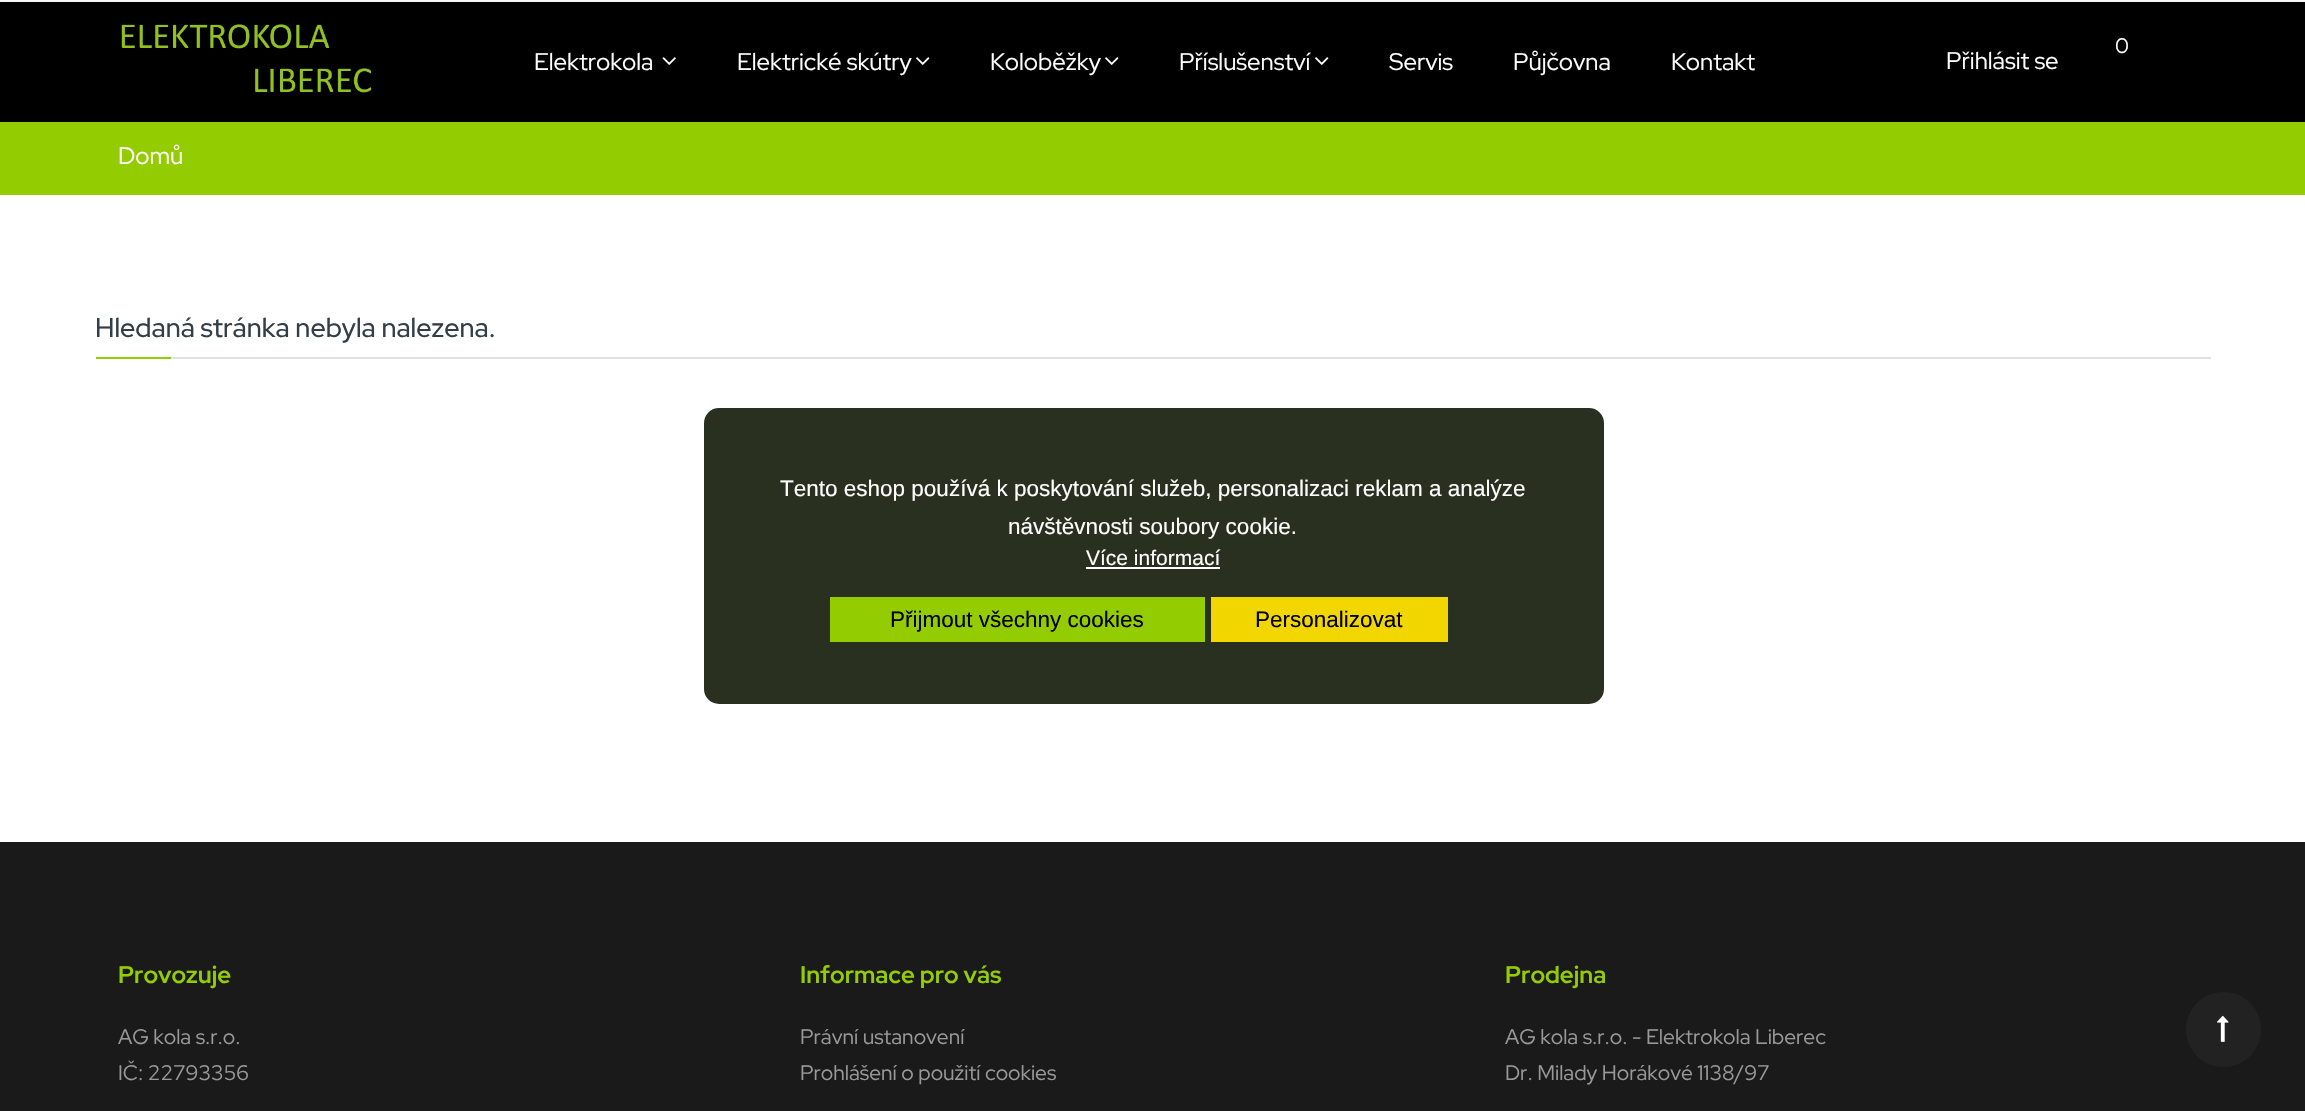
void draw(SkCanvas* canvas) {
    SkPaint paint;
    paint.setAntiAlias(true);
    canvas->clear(0xFFFFFFFF);
    paint.setColor(0xFFF5F5F5);
    canvas->drawRect(SkRect::MakeXYWH(0, 0, 2305, 2), paint);
    paint.setColor(0xFF000000);
    canvas->drawRect(SkRect::MakeXYWH(0, 2, 2305, 120), paint);
    canvas->drawImageRect(SkImages::DeferredFromEncodedData(SkData::MakeFromFileName("img1.png")), SkRect::MakeXYWH(121, 24, 251, 69), SkSamplingOptions());
    SkFont font1(fontMgr->matchFamilyStyle("Red Hat Display", SkFontStyle::Normal()), 24);
    font1.setSubpixel(true);
    paint.setColor(0xFFFFFFFF);
    canvas->drawString("Elektrokola", 534, 70, font1, paint);
    canvas->drawImageRect(SkImages::DeferredFromEncodedData(SkData::MakeFromFileName("img2.png")), SkRect::MakeXYWH(662, 57, 14, 8), SkSamplingOptions());
    canvas->drawString("Elektrické skútry", 737, 70, font1, paint);
    canvas->drawImageRect(SkImages::DeferredFromEncodedData(SkData::MakeFromFileName("img3.png")), SkRect::MakeXYWH(916, 57, 14, 8), SkSamplingOptions());
    canvas->drawString("Koloběžky", 990, 70, font1, paint);
    canvas->drawImageRect(SkImages::DeferredFromEncodedData(SkData::MakeFromFileName("img3.png")), SkRect::MakeXYWH(1105, 57, 14, 8), SkSamplingOptions());
    canvas->drawString("Příslušenství", 1179, 70, font1, paint);
    canvas->drawImageRect(SkImages::DeferredFromEncodedData(SkData::MakeFromFileName("img3.png")), SkRect::MakeXYWH(1315, 57, 14, 8), SkSamplingOptions());
    canvas->drawString("Servis", 1389, 70, font1, paint);
    canvas->drawString("Půjčovna", 1513, 70, font1, paint);
    canvas->drawString("Kontakt", 1671, 70, font1, paint);
    SkFont font2(fontMgr->matchFamilyStyle("Red Hat Display", SkFontStyle::Normal()), 21);
    font2.setSubpixel(true);
    canvas->drawString("0", 2115, 53, font2, paint);
    canvas->drawString("Přihlásit se", 1946, 69, font1, paint);
    paint.setColor(0xFF94CC02);
    canvas->drawRect(SkRect::MakeXYWH(0, 122, 2305, 73), paint);
    paint.setColor(0xFFFFFFFF);
    canvas->drawString("Domů", 118, 164, font1, paint);
    paint.setColor(0xFFE1E1E1);
    canvas->drawRect(SkRect::MakeXYWH(171, 357, 2040, 2), paint);
    SkFont font3(fontMgr->matchFamilyStyle("Red Hat Display", SkFontStyle(500, SkFontStyle::kNormal_Width, SkFontStyle::kUpright_Slant)), 27);
    font3.setSubpixel(true);
    paint.setColor(0xFF333E48);
    canvas->drawString("Hledaná stránka nebyla nalezena.", 95, 337, font3, paint);
    paint.setColor(0xFF94CC02);
    canvas->drawRect(SkRect::MakeXYWH(96, 357, 75, 2), paint);
    paint.setColor(0xFF1A1A1A);
    canvas->drawRect(SkRect::MakeXYWH(0, 842, 2305, 269), paint);
    SkFont font4(fontMgr->matchFamilyStyle("Red Hat Display", SkFontStyle::Bold()), 24);
    font4.setSubpixel(true);
    paint.setColor(0xFF94CC02);
    canvas->drawString("Provozuje", 118, 983, font4, paint);
    paint.setColor(0xFF999999);
    canvas->drawString("AG kola s.r.o.", 118, 1044, font2, paint);
    canvas->drawString("IČ: 22793356", 118, 1080, font2, paint);
    paint.setColor(0xFF94CC02);
    canvas->drawString("Informace pro vás", 800, 983, font4, paint);
    paint.setColor(0xFF999999);
    canvas->drawString("Právní ustanovení", 800, 1044, font2, paint);
    canvas->drawString("Prohlášení o použití cookies", 800, 1080, font2, paint);
    paint.setColor(0xFF94CC02);
    canvas->drawString("Prodejna", 1505, 983, font4, paint);
    paint.setColor(0xFF999999);
    canvas->drawString("AG kola s.r.o. - Elektrokola Liberec", 1505, 1044, font2, paint);
    canvas->drawString("Dr. Milady Horákové 1138/97", 1505, 1080, font2, paint);
    paint.setColor(0xFF222222);
    canvas->drawCircle(2223.5f, 1029.5f, 37.5f, paint);
    canvas->drawImageRect(SkImages::DeferredFromEncodedData(SkData::MakeFromFileName("img4.png")), SkRect::MakeXYWH(2217, 1015, 12, 27), SkSamplingOptions());
    paint.setColor(0xFF2A3020);
    canvas->drawRoundRect(SkRect::MakeXYWH(704, 408, 900, 296), 15, 15, paint);
    SkFont font5(fontMgr->matchFamilyStyle("Liberation Sans", SkFontStyle::Normal()), 22.5f);
    font5.setSubpixel(true);
    paint.setColor(0xFFFFFFFF);
    canvas->drawString("Tento eshop používá k poskytování služeb, personalizaci reklam a analýze", 780, 496, font5, paint);
    canvas->drawString("návštěvnosti soubory cookie.", 1008, 534, font5, paint);
    SkFont font6(fontMgr->matchFamilyStyle("Liberation Sans", SkFontStyle::Normal()), 21);
    font6.setSubpixel(true);
    canvas->drawString("Více informací", 1086, 565, font6, paint);
    canvas->drawRect(SkRect::MakeXYWH(1086, 567, 134, 2), paint);
    paint.setColor(0xFF94CC02);
    canvas->drawRect(SkRect::MakeXYWH(830, 597, 375, 45), paint);
    paint.setColor(0xFF000000);
    canvas->drawString("Přijmout všechny cookies", 890, 627, font5, paint);
    paint.setColor(0xFFF1D600);
    canvas->drawRect(SkRect::MakeXYWH(1211, 597, 237, 45), paint);
    paint.setColor(0xFF000000);
    canvas->drawString("Personalizovat", 1255, 627, font5, paint);
}
